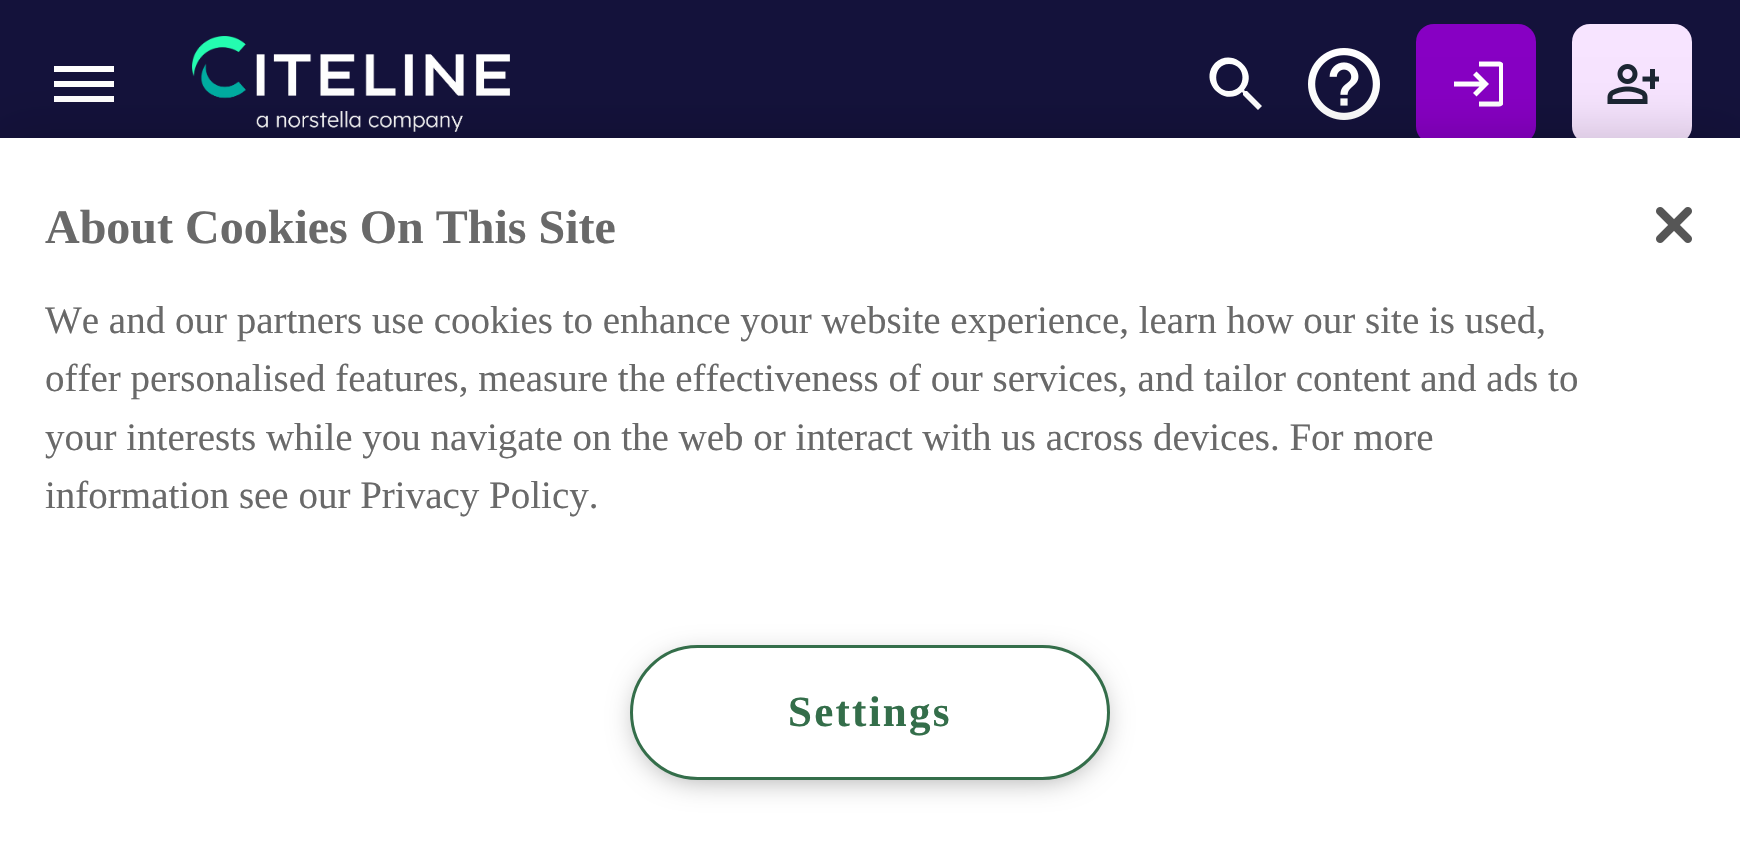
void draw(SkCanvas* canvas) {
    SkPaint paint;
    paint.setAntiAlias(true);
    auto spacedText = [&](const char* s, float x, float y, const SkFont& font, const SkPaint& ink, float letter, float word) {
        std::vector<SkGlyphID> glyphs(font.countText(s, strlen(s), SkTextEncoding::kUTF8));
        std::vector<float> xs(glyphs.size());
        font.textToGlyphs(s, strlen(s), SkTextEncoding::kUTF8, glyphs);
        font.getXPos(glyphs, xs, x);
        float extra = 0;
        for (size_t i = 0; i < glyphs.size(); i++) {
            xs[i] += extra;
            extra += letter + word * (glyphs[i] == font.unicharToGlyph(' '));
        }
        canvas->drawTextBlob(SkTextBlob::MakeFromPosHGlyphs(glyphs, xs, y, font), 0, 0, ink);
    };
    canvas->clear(0xFF14123B);
    paint.setColor(0xFFFFFFFF);
    canvas->drawPath(SkPathBuilder().moveTo(54, 96).lineTo(54, 102).lineTo(114, 102).lineTo(114, 96).close().moveTo(54, 81).lineTo(54, 87).lineTo(114, 87).lineTo(114, 81).close().moveTo(54, 66).lineTo(54, 72).lineTo(114, 72).lineTo(114, 66).close().detach(), paint);
    canvas->drawImageRect(SkImages::DeferredFromEncodedData(SkData::MakeFromFileName("img1.png")), SkRect::MakeXYWH(192, 36, 318, 96), SkSamplingOptions());
    canvas->drawPath(SkPathBuilder().moveTo(1247, 91).lineTo(1245, 91).lineTo(1244, 90).cubicTo(1260, 72, 1233, 46, 1215, 63).cubicTo(1198, 81, 1224, 108, 1242, 92).lineTo(1243, 93).lineTo(1243, 95).lineTo(1258, 110).lineTo(1262, 106).close().moveTo(1229, 91).cubicTo(1212, 91, 1212, 64, 1229, 64).cubicTo(1247, 64, 1247, 91, 1229, 91).close().detach(), paint);
    canvas->drawImageRect(SkImages::DeferredFromEncodedData(SkData::MakeFromFileName("img2.png")), SkRect::MakeXYWH(1308, 48, 72, 72), SkSamplingOptions());
    paint.setColor(0xFF8700C3);
    canvas->drawRoundRect(SkRect::MakeXYWH(1416, 24, 120, 120), 18, 18, paint);
    canvas->drawImageRect(SkImages::DeferredFromEncodedData(SkData::MakeFromFileName("img3.png")), SkRect::MakeXYWH(1454, 61, 49, 46), SkSamplingOptions());
    paint.setColor(0xFFF7E4FF);
    canvas->drawRoundRect(SkRect::MakeXYWH(1572, 24, 120, 120), 18, 18, paint);
    canvas->drawImageRect(SkImages::DeferredFromEncodedData(SkData::MakeFromFileName("img4.png")), SkRect::MakeXYWH(1607, 64, 52, 40), SkSamplingOptions());
    paint.setColor(0x33000000);
    paint.setMaskFilter(SkMaskFilter::MakeBlur(kNormal_SkBlurStyle, 27));
    canvas->drawRect(SkRect::MakeXYWH(0, 138, 1740, 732), paint);
    paint.setMaskFilter(nullptr);
    paint.setColor(0xFFFFFFFF);
    canvas->drawRect(SkRect::MakeXYWH(0, 138, 1740, 730), paint);
    SkFont font1(fontMgr->matchFamilyStyle("Liberation Serif", SkFontStyle::Bold()), 48);
    font1.setSubpixel(true);
    paint.setColor(0xFF696969);
    canvas->drawString("About Cookies On This Site", 45, 243, font1, paint);
    SkFont font2(fontMgr->matchFamilyStyle("Liberation Serif", SkFontStyle::Normal()), 39);
    font2.setSubpixel(true);
    canvas->drawString("We and our partners use cookies to enhance your website experience, learn how our site is used,", 45, 333, font2, paint);
    canvas->drawString("offer personalised features, measure the effectiveness of our services, and tailor content and ads to", 45, 391, font2, paint);
    canvas->drawString("your interests while you navigate on the web or interact with us across devices. For more", 45, 450, font2, paint);
    canvas->drawString("information see our Privacy Policy.", 45, 508, font2, paint);
    paint.setColor(0xFF999999);
    paint.setMaskFilter(SkMaskFilter::MakeBlur(kNormal_SkBlurStyle, 15));
    canvas->drawRoundRect(SkRect::MakeXYWH(639, 660, 462, 117), 58.5f, 58.5f, paint);
    paint.setMaskFilter(nullptr);
    paint.setColor(0xFFFFFFFF);
    canvas->drawRoundRect(SkRect::MakeXYWH(631.5f, 646.5f, 477, 132), 66, 66, paint);
    paint.setStyle(SkPaint::kStroke_Style);
    paint.setStrokeWidth(3);
    paint.setColor(0xFF346E4A);
    canvas->drawRoundRect(SkRect::MakeXYWH(631.5f, 646.5f, 477, 132), 66, 66, paint);
    SkFont font3(fontMgr->matchFamilyStyle("Liberation Serif", SkFontStyle::Bold()), 43);
    font3.setSubpixel(true);
    paint.setStyle(SkPaint::kFill_Style);
    spacedText("Settings", 788, 726, font3, paint, 2.25f, 0);
    canvas->drawImageRect(SkImages::DeferredFromEncodedData(SkData::MakeFromFileName("img5.png")), SkRect::MakeXYWH(1656, 207, 36, 36), SkSamplingOptions());
}
